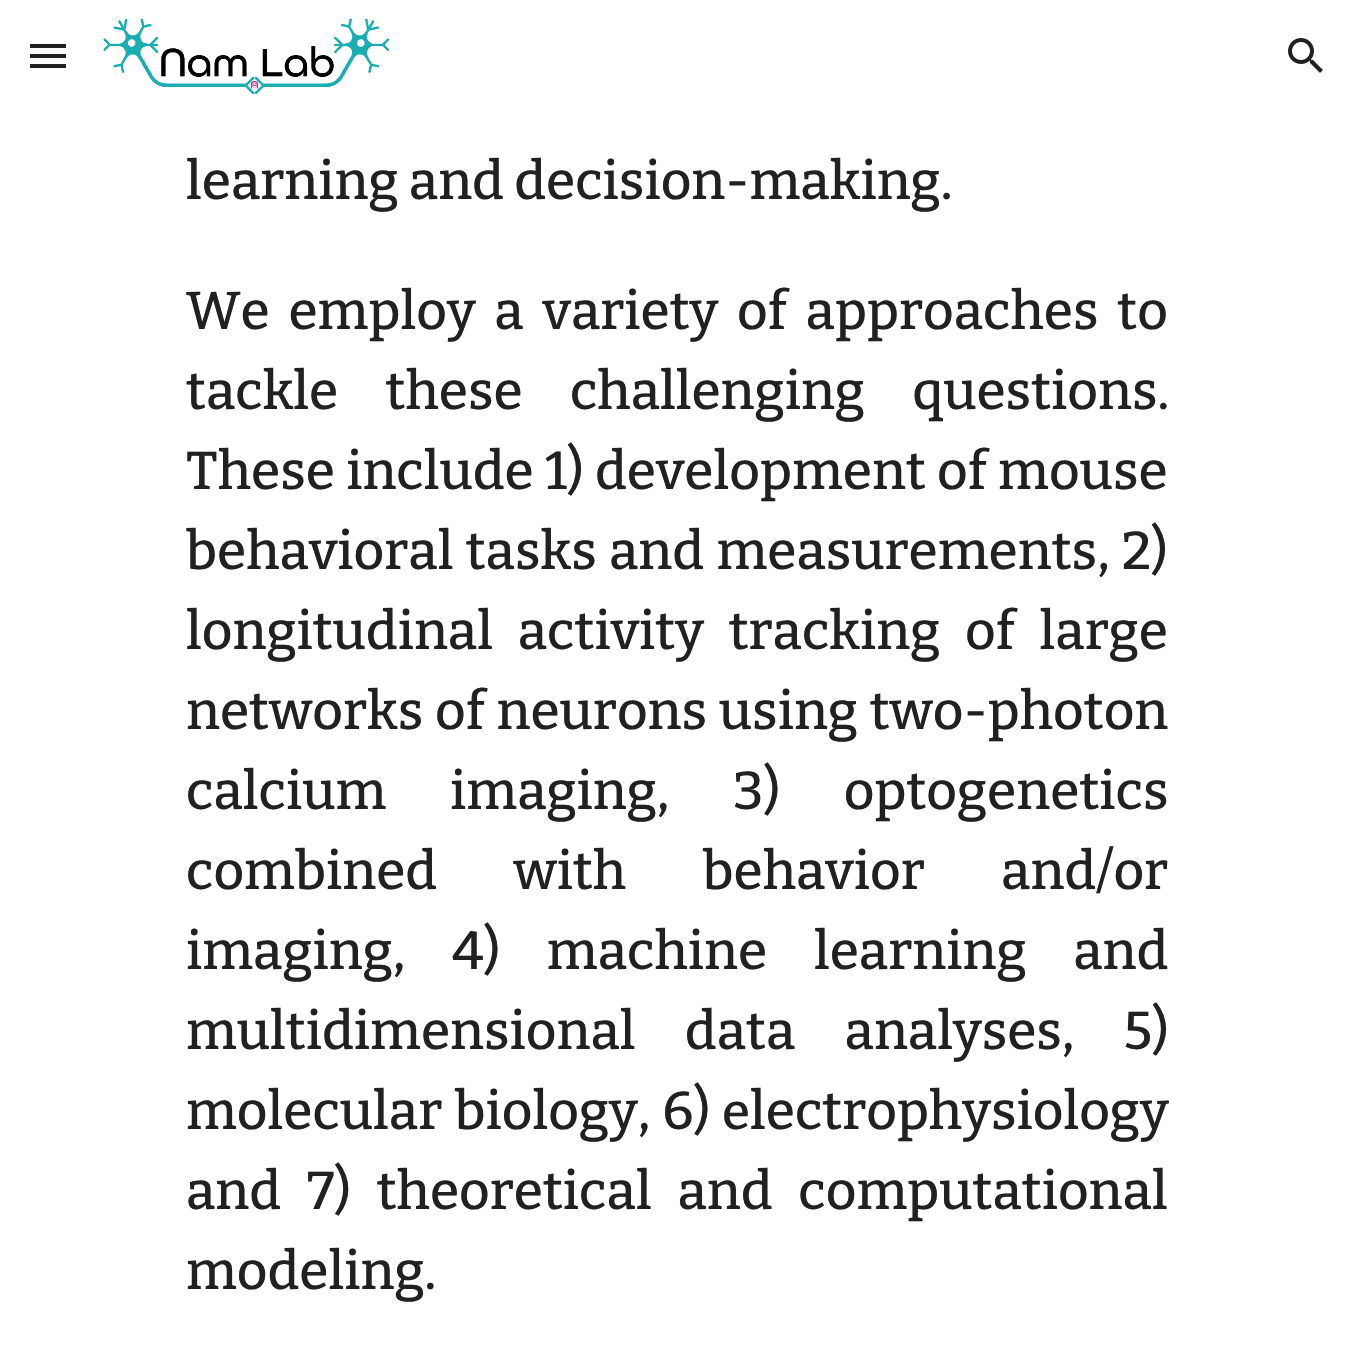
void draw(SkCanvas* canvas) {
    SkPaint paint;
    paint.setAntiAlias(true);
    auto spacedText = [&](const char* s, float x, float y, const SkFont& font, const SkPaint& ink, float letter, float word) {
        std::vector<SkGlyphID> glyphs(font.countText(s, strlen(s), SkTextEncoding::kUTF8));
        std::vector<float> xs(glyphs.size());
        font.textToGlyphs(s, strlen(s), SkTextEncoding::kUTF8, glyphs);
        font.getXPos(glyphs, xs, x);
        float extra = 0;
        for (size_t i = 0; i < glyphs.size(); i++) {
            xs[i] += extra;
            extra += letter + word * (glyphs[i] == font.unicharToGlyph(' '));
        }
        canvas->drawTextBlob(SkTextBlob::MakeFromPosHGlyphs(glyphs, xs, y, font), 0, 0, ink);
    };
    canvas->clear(0xFFFFFFFF);
    paint.setColor(0xFF212121);
    canvas->drawRect(SkRect::MakeXYWH(30, 44, 36, 4), paint);
    canvas->drawRect(SkRect::MakeXYWH(30, 54, 36, 4), paint);
    canvas->drawRect(SkRect::MakeXYWH(30, 64, 36, 4), paint);
    canvas->drawImageRect(SkImages::DeferredFromEncodedData(SkData::MakeFromFileName("img1.png")), SkRect::MakeXYWH(103, 18, 287, 77), SkSamplingOptions());
    canvas->drawImageRect(SkImages::DeferredFromEncodedData(SkData::MakeFromFileName("img2.png")), SkRect::MakeXYWH(1288, 38, 35, 35), SkSamplingOptions());
    SkFont font1(fontMgr->matchFamilyStyle("Bitter", SkFontStyle(500, SkFontStyle::kNormal_Width, SkFontStyle::kUpright_Slant)), 53.3f);
    font1.setSubpixel(true);
    canvas->drawString("learning and decision-making.", 186, 199, font1, paint);
    spacedText("We employ a variety of approaches to", 186, 329, font1, paint, 0, 8.5f);
    spacedText("tackle these challenging questions.", 186, 409, font1, paint, 0, 37);
    spacedText("These include 1) development of mouse", 186, 489, font1, paint, 0, 1);
    spacedText("behavioral tasks and measurements, 2)", 186, 569, font1, paint, 0, 2);
    spacedText("longitudinal activity tracking of large", 186, 649, font1, paint, 0, 14.5f);
    spacedText("networks of neurons using two-photon", 186, 729, font1, paint, 0, 1.5f);
    spacedText("calcium imaging, 3) optogenetics", 186, 809, font1, paint, 0, 53.5f);
    spacedText("combined with behavior and/or", 186, 889, font1, paint, 0, 66);
    spacedText("imaging, 4) machine learning and", 186, 969, font1, paint, 0, 36.5f);
    spacedText("multidimensional data analyses, 5)", 186, 1049, font1, paint, 0, 39);
    spacedText("molecular biology, 6)", 186, 1129, font1, paint, 0, 2);
    SkFont font2(fontMgr->matchFamilyStyle("Bitter", SkFontStyle(500, SkFontStyle::kNormal_Width, SkFontStyle::kUpright_Slant)), 51);
    font2.setSubpixel(true);
    canvas->drawString("e", 722, 1129, font2, paint);
    canvas->drawString("lectrophysiology", 750, 1129, font1, paint);
    spacedText("and 7) theoretical and computational", 186, 1209, font1, paint, 0, 15.5f);
    canvas->drawString("modeling.", 186, 1289, font1, paint);
}
